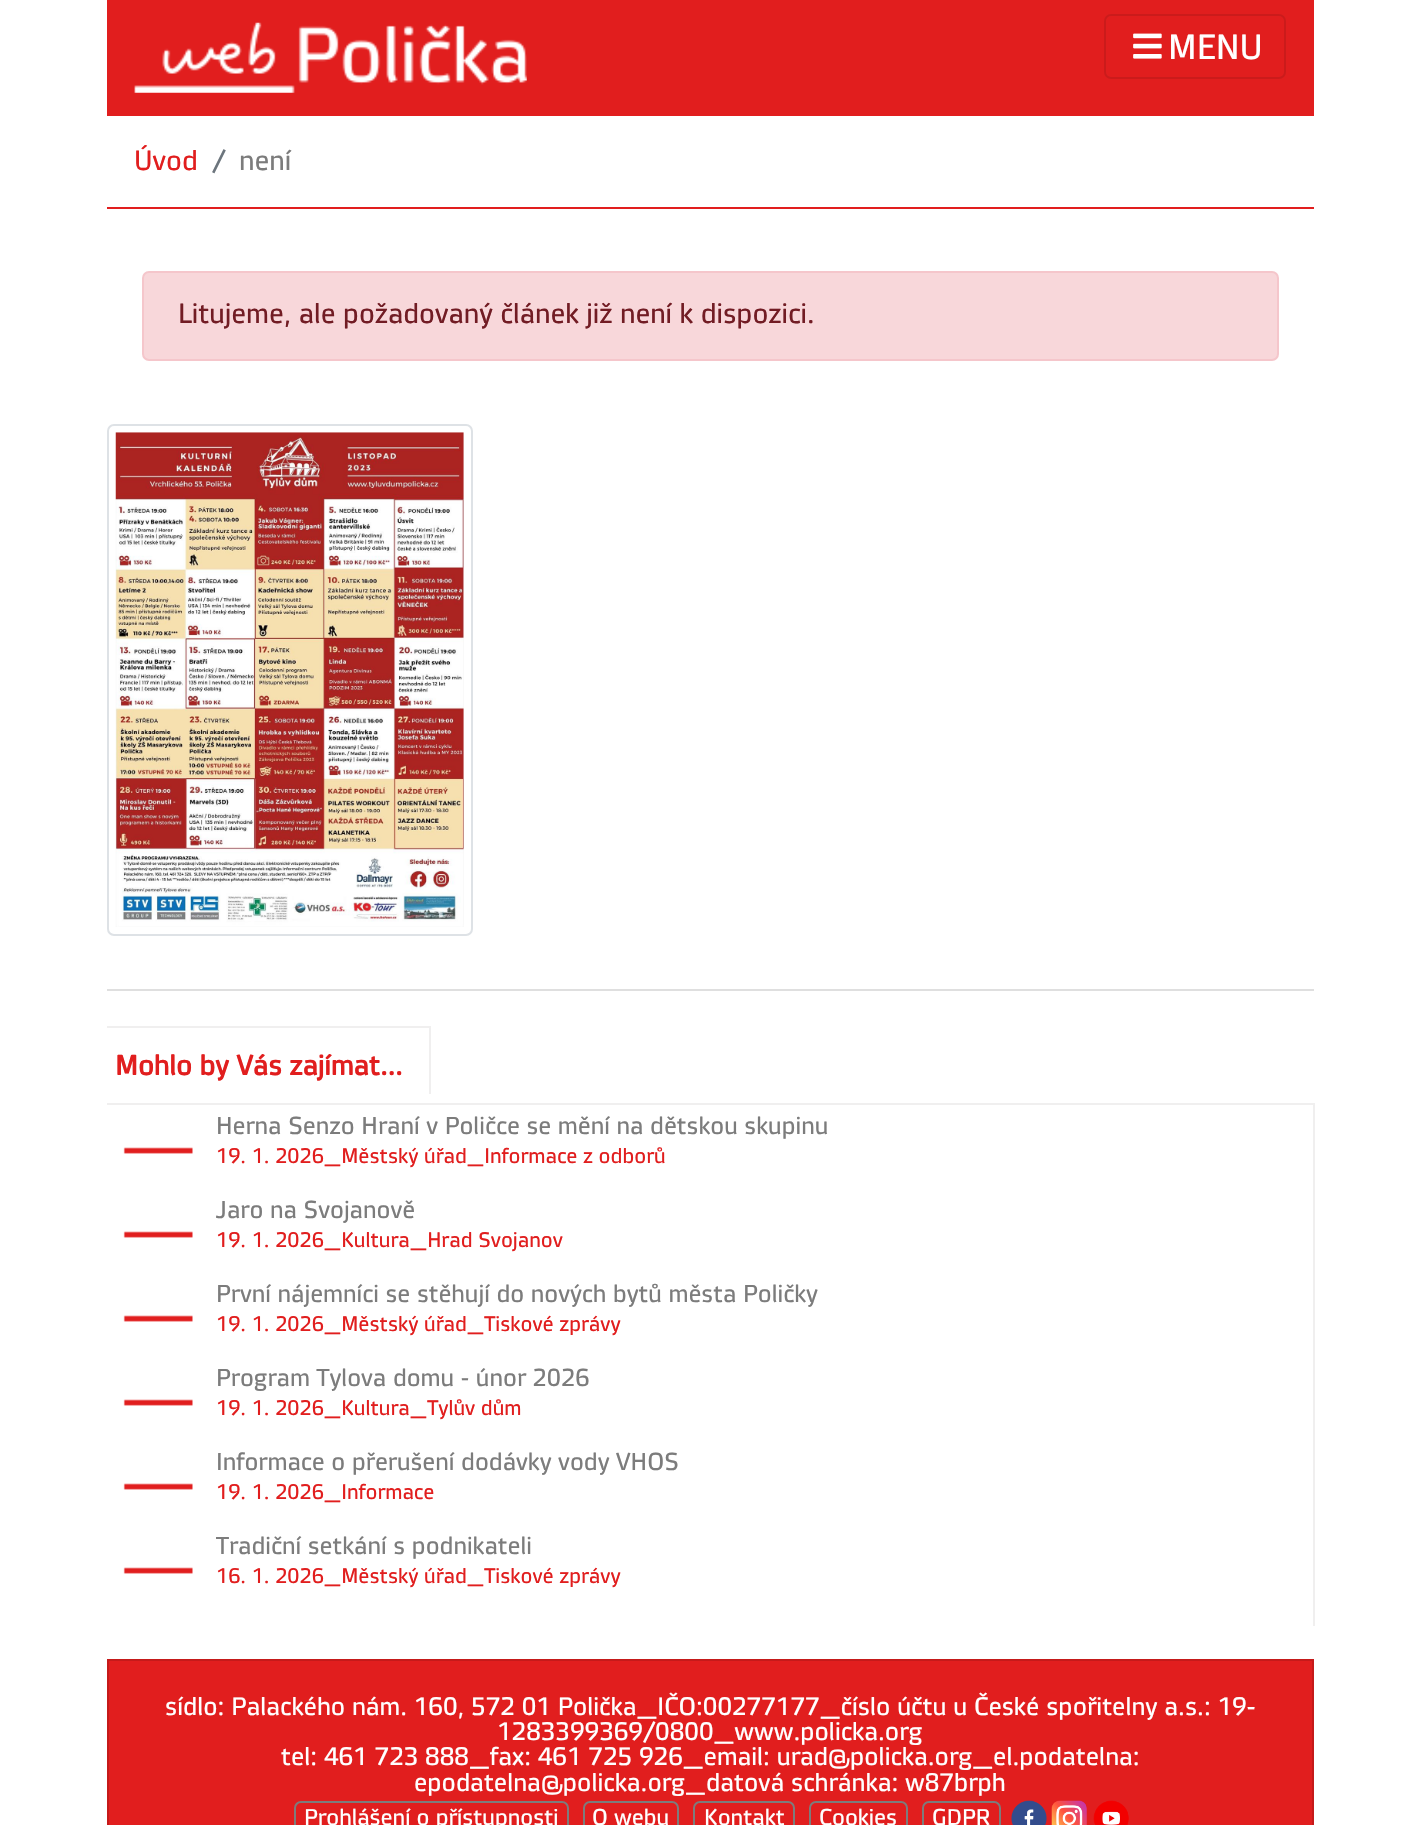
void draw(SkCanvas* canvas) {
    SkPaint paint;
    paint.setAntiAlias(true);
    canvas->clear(0xFFFFFFFF);
    paint.setColor(0xFFE11E1E);
    canvas->drawRect(SkRect::MakeXYWH(107, 0, 1207, 116), paint);
    canvas->drawImageRect(SkImages::DeferredFromEncodedData(SkData::MakeFromFileName("img1.png")), SkRect::MakeXYWH(134, 22, 393, 71), SkSamplingOptions());
    paint.setStyle(SkPaint::kStroke_Style);
    paint.setStrokeWidth(2);
    paint.setColor(0xFFCB1B1B);
    canvas->drawRoundRect(SkRect::MakeXYWH(1105, 15, 180, 63), 6, 6, paint);
    canvas->drawImageRect(SkImages::DeferredFromEncodedData(SkData::MakeFromFileName("img2.png")), SkRect::MakeXYWH(1133, 33, 29, 26), SkSamplingOptions());
    SkFont font1(fontMgr->matchFamilyStyle("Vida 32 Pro", SkFontStyle::Normal()), 35);
    font1.setSubpixel(true);
    paint.setStyle(SkPaint::kFill_Style);
    paint.setColor(0xFFFFFFFF);
    canvas->drawString("MENU", 1168, 59, font1, paint);
    paint.setColor(0xFFE11E1E);
    canvas->drawRect(SkRect::MakeXYWH(107, 207, 1207, 2), paint);
    SkFont font2(fontMgr->matchFamilyStyle("Vida 32 Pro", SkFontStyle::Normal()), 28);
    font2.setSubpixel(true);
    canvas->drawString("Úvod", 134, 170, font2, paint);
    paint.setColor(0xFF6C757D);
    canvas->drawString("/", 212, 170, font2, paint);
    paint.setColor(0xFF7C7C7C);
    canvas->drawString("není", 239, 170, font2, paint);
    paint.setColor(0xFFF8D7DA);
    canvas->drawRoundRect(SkRect::MakeXYWH(143, 272, 1135, 88), 6, 6, paint);
    paint.setStyle(SkPaint::kStroke_Style);
    paint.setColor(0xFFF5C6CB);
    canvas->drawRoundRect(SkRect::MakeXYWH(143, 272, 1135, 88), 6, 6, paint);
    paint.setStyle(SkPaint::kFill_Style);
    paint.setColor(0xFF721C24);
    canvas->drawString("Litujeme, ale požadovaný článek již není k dispozici.", 178, 323, font2, paint);
    paint.setStyle(SkPaint::kStroke_Style);
    paint.setColor(0xFFDEE2E6);
    canvas->drawRoundRect(SkRect::MakeXYWH(108, 425, 364, 510), 6, 6, paint);
    canvas->drawImageRect(SkImages::DeferredFromEncodedData(SkData::MakeFromFileName("img3.png")), SkRect::MakeXYWH(115, 432, 349, 495), SkSamplingOptions());
    paint.setStyle(SkPaint::kFill_Style);
    paint.setColor(0xFFDFDFDF);
    canvas->drawRect(SkRect::MakeXYWH(107, 989, 1207, 2), paint);
    paint.setColor(0xFFF0EFEF);
    canvas->drawRect(SkRect::MakeXYWH(107, 1026, 324, 2), paint);
    canvas->drawRect(SkRect::MakeXYWH(429, 1026, 2, 68), paint);
    SkFont font3(fontMgr->matchFamilyStyle("Vida 32 Pro", SkFontStyle::Bold()), 28);
    font3.setSubpixel(true);
    paint.setColor(0xFFE11E1E);
    canvas->drawString("Mohlo by Vás zajímat...", 115, 1075, font3, paint);
    paint.setColor(0xFFF0EFEF);
    canvas->drawRect(SkRect::MakeXYWH(107, 1103, 1207, 2), paint);
    canvas->drawRect(SkRect::MakeXYWH(1313, 1103, 2, 523), paint);
    canvas->drawImageRect(SkImages::DeferredFromEncodedData(SkData::MakeFromFileName("img4.png")), SkRect::MakeXYWH(123, 1147, 70, 7), SkSamplingOptions());
    SkFont font4(fontMgr->matchFamilyStyle("Vida 32 Pro", SkFontStyle::Normal()), 24.5f);
    font4.setSubpixel(true);
    paint.setColor(0xFF7C7C7C);
    canvas->drawString("Herna Senzo Hraní v Poličce se mění na dětskou skupinu", 216, 1134, font4, paint);
    SkFont font5(fontMgr->matchFamilyStyle("Vida 32 Pro", SkFontStyle::Normal()), 21);
    font5.setSubpixel(true);
    paint.setColor(0xFFE11E1E);
    canvas->drawString("19. 1. 2026_Městský úřad_Informace z odborů", 216, 1163, font5, paint);
    canvas->drawImageRect(SkImages::DeferredFromEncodedData(SkData::MakeFromFileName("img4.png")), SkRect::MakeXYWH(123, 1231, 70, 7), SkSamplingOptions());
    paint.setColor(0xFF7C7C7C);
    canvas->drawString("Jaro na Svojanově", 216, 1218, font4, paint);
    paint.setColor(0xFFE11E1E);
    canvas->drawString("19. 1. 2026_Kultura_Hrad Svojanov", 216, 1247, font5, paint);
    canvas->drawImageRect(SkImages::DeferredFromEncodedData(SkData::MakeFromFileName("img4.png")), SkRect::MakeXYWH(123, 1315, 70, 7), SkSamplingOptions());
    paint.setColor(0xFF7C7C7C);
    canvas->drawString("První nájemníci se stěhují do nových bytů města Poličky", 216, 1302, font4, paint);
    paint.setColor(0xFFE11E1E);
    canvas->drawString("19. 1. 2026_Městský úřad_Tiskové zprávy", 216, 1331, font5, paint);
    canvas->drawImageRect(SkImages::DeferredFromEncodedData(SkData::MakeFromFileName("img4.png")), SkRect::MakeXYWH(123, 1399, 70, 7), SkSamplingOptions());
    paint.setColor(0xFF7C7C7C);
    canvas->drawString("Program Tylova domu - únor 2026", 216, 1386, font4, paint);
    paint.setColor(0xFFE11E1E);
    canvas->drawString("19. 1. 2026_Kultura_Tylův dům", 216, 1415, font5, paint);
    canvas->drawImageRect(SkImages::DeferredFromEncodedData(SkData::MakeFromFileName("img4.png")), SkRect::MakeXYWH(123, 1483, 70, 7), SkSamplingOptions());
    paint.setColor(0xFF7C7C7C);
    canvas->drawString("Informace o přerušení dodávky vody VHOS", 216, 1470, font4, paint);
    paint.setColor(0xFFE11E1E);
    canvas->drawString("19. 1. 2026_Informace", 216, 1499, font5, paint);
    canvas->drawImageRect(SkImages::DeferredFromEncodedData(SkData::MakeFromFileName("img4.png")), SkRect::MakeXYWH(123, 1567, 70, 7), SkSamplingOptions());
    paint.setColor(0xFF7C7C7C);
    canvas->drawString("Tradiční setkání s podnikateli", 216, 1554, font4, paint);
    paint.setColor(0xFFE11E1E);
    canvas->drawString("16. 1. 2026_Městský úřad_Tiskové zprávy", 216, 1583, font5, paint);
    canvas->drawRect(SkRect::MakeXYWH(108, 1660, 1205, 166), paint);
    paint.setStyle(SkPaint::kStroke_Style);
    paint.setColor(0xFFC51A1A);
    canvas->drawRect(SkRect::MakeXYWH(108, 1660, 1205, 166), paint);
    SkFont font6(fontMgr->matchFamilyStyle("Vida 32 Pro", SkFontStyle::Normal()), 25.2f);
    font6.setSubpixel(true);
    paint.setStyle(SkPaint::kFill_Style);
    paint.setColor(0xFFFFFFFF);
    canvas->drawString("sídlo: Palackého nám. 160, 572 01 Polička_IČO:00277177_číslo účtu u České spořitelny a.s.: 19-", 165, 1715, font6, paint);
    canvas->drawString("1283399369/0800_www.policka.org", 497, 1740, font6, paint);
    canvas->drawString("tel: 461 723 888_fax: 461 725 926_email: urad@policka.org_el.podatelna:", 281, 1765, font6, paint);
    canvas->drawString("epodatelna@policka.org_datová schránka: w87brph", 414, 1791, font6, paint);
    paint.setStyle(SkPaint::kStroke_Style);
    paint.setColor(0xFF7C7C7C);
    canvas->drawRoundRect(SkRect::MakeXYWH(295, 1802, 273, 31), 6, 6, paint);
    SkFont font7(fontMgr->matchFamilyStyle("Vida 32 Pro", SkFontStyle::Normal()), 22.75f);
    font7.setSubpixel(true);
    paint.setStyle(SkPaint::kFill_Style);
    paint.setColor(0xFFFFFFFF);
    canvas->drawString("Prohlášení o přístupnosti", 304, 1825, font7, paint);
    paint.setStyle(SkPaint::kStroke_Style);
    paint.setColor(0xFF7C7C7C);
    canvas->drawRoundRect(SkRect::MakeXYWH(584, 1802, 94, 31), 6, 6, paint);
    paint.setStyle(SkPaint::kFill_Style);
    paint.setColor(0xFFFFFFFF);
    canvas->drawString("O webu", 592, 1825, font7, paint);
    paint.setStyle(SkPaint::kStroke_Style);
    paint.setColor(0xFF7C7C7C);
    canvas->drawRoundRect(SkRect::MakeXYWH(694, 1802, 100, 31), 6, 6, paint);
    paint.setStyle(SkPaint::kFill_Style);
    paint.setColor(0xFFFFFFFF);
    canvas->drawString("Kontakt", 704, 1825, font7, paint);
    paint.setStyle(SkPaint::kStroke_Style);
    paint.setColor(0xFF7C7C7C);
    canvas->drawRoundRect(SkRect::MakeXYWH(810, 1802, 97, 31), 6, 6, paint);
    paint.setStyle(SkPaint::kFill_Style);
    paint.setColor(0xFFFFFFFF);
    canvas->drawString("Cookies", 819, 1825, font7, paint);
    paint.setStyle(SkPaint::kStroke_Style);
    paint.setColor(0xFF7C7C7C);
    canvas->drawRoundRect(SkRect::MakeXYWH(923, 1802, 77, 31), 6, 6, paint);
    paint.setStyle(SkPaint::kFill_Style);
    paint.setColor(0xFFFFFFFF);
    canvas->drawString("GDPR", 932, 1825, font7, paint);
    canvas->drawImageRect(SkImages::DeferredFromEncodedData(SkData::MakeFromFileName("img5.png")), SkRect::MakeXYWH(1011, 1800, 36, 25), SkSamplingOptions());
    canvas->drawImageRect(SkImages::DeferredFromEncodedData(SkData::MakeFromFileName("img6.png")), SkRect::MakeXYWH(1051, 1800, 36, 25), SkSamplingOptions());
    canvas->drawImageRect(SkImages::DeferredFromEncodedData(SkData::MakeFromFileName("img7.png")), SkRect::MakeXYWH(1093, 1800, 36, 25), SkSamplingOptions());
}
